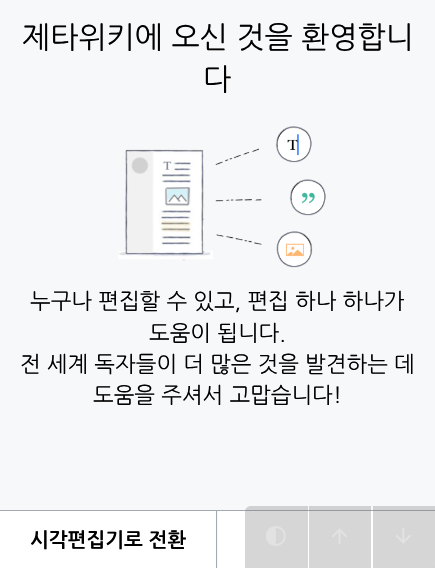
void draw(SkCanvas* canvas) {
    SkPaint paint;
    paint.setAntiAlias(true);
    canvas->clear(0xFFF7F8F9);
    SkFont font1(fontMgr->matchFamilyStyle("NanumGothic", SkFontStyle::Normal()), 30);
    font1.setSubpixel(true);
    paint.setColor(0xFF000000);
    canvas->drawString("제타위키에 오신 것을 환영합니", 22, 48, font1, paint);
    canvas->drawString("다", 203, 90, font1, paint);
    canvas->drawImageRect(SkImages::DeferredFromEncodedData(SkData::MakeFromFileName("img1.png")), SkRect::MakeXYWH(118, 126, 208, 142), SkSamplingOptions());
    SkFont font2(fontMgr->matchFamilyStyle("NanumGothic", SkFontStyle::Normal()), 22);
    font2.setSubpixel(true);
    canvas->drawString("누구나 편집할 수 있고, 편집 하나 하나가", 30, 309, font2, paint);
    canvas->drawString("도움이 됩니다.", 149, 341, font2, paint);
    canvas->drawString("전 세계 독자들이 더 많은 것을 발견하는 데", 20, 372, font2, paint);
    canvas->drawString("도움을 주셔서 고맙습니다!", 93, 403, font2, paint);
    paint.setStyle(SkPaint::kStroke_Style);
    paint.setStrokeWidth(1);
    paint.setColor(0xFFA2A9B1);
    canvas->drawRect(SkRect::MakeXYWH(-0.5f, 510.5f, 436, 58), paint);
    paint.setStyle(SkPaint::kFill_Style);
    canvas->drawRect(SkRect::MakeXYWH(216, 511, 1, 57), paint);
    paint.setColor(0xFFFFFFFF);
    canvas->drawPath(SkPathBuilder().moveTo(0, 511).lineTo(216, 511).lineTo(216, 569).lineTo(2.5f, 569).cubicTo(1, 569, 0, 568, 0, 566.5f).close().detach(), paint);
    SkFont font3(fontMgr->matchFamilyStyle("NanumGothic", SkFontStyle::Bold()), 20);
    font3.setSubpixel(true);
    paint.setColor(0xFF000000);
    canvas->drawString("시각편집기로 전환", 30, 547, font3, paint);
    paint.setColor(0xFFFFFFFF);
    canvas->drawPath(SkPathBuilder().moveTo(218, 511).lineTo(435, 511).lineTo(435, 566.5f).cubicTo(435, 568, 434, 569, 432.5f, 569).lineTo(218, 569).close().detach(), paint);
    paint.setColor(0x4D777777);
    canvas->drawPath(SkPathBuilder().moveTo(251, 506).lineTo(308, 506).lineTo(308, 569).lineTo(245, 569).lineTo(245, 512).cubicTo(245, 508.5f, 247.5f, 506, 251, 506).close().detach(), paint);
    canvas->drawImageRect(SkImages::DeferredFromEncodedData(SkData::MakeFromFileName("img2.png")), SkRect::MakeXYWH(266, 526, 20, 20), SkSamplingOptions());
    canvas->drawRect(SkRect::MakeXYWH(309, 506, 62, 62), paint);
    canvas->drawImageRect(SkImages::DeferredFromEncodedData(SkData::MakeFromFileName("img3.png")), SkRect::MakeXYWH(332, 528, 15, 16), SkSamplingOptions());
    canvas->drawRect(SkRect::MakeXYWH(373, 506, 62, 62), paint);
    canvas->drawImageRect(SkImages::DeferredFromEncodedData(SkData::MakeFromFileName("img4.png")), SkRect::MakeXYWH(396, 528, 15, 16), SkSamplingOptions());
}
